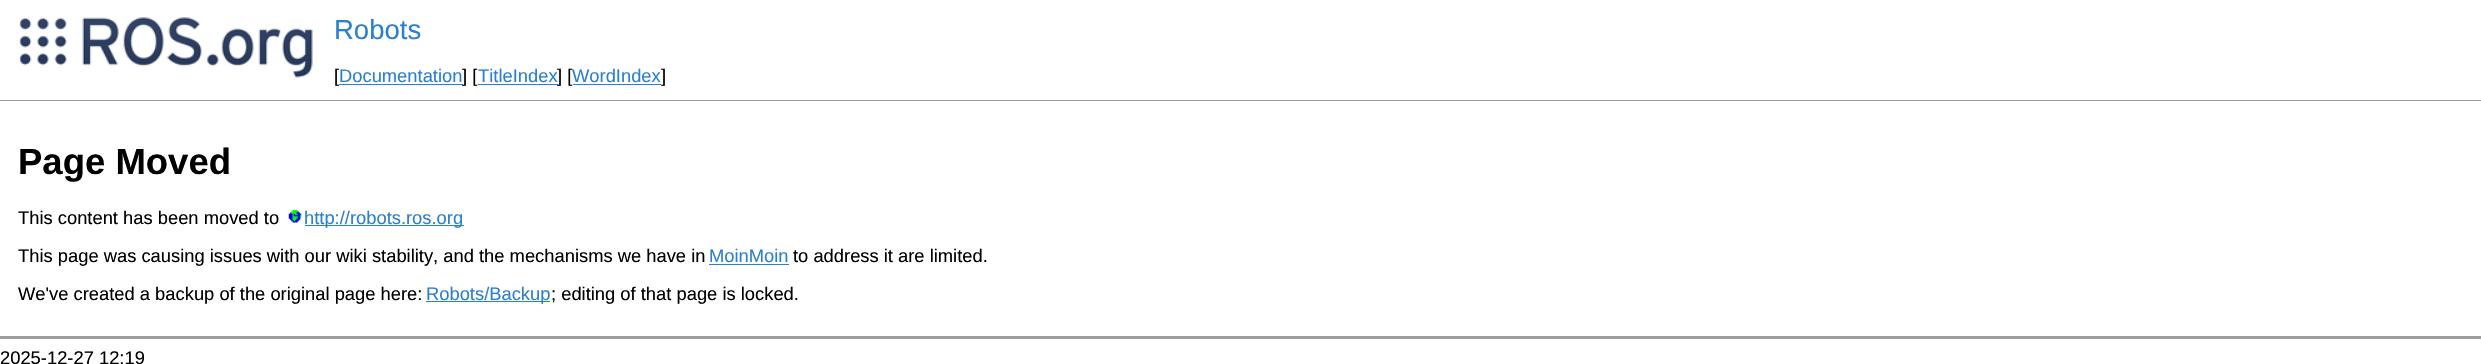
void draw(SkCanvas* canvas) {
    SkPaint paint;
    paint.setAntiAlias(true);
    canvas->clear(0xFFFFFFFF);
    canvas->drawImageRect(SkImages::DeferredFromEncodedData(SkData::MakeFromFileName("img1.png")), SkRect::MakeXYWH(19, 17, 294, 61), SkSamplingOptions());
    SkFont font1(fontMgr->matchFamilyStyle("Liberation Sans", SkFontStyle::Normal()), 27.5f);
    font1.setSubpixel(true);
    paint.setColor(0xFF2B7FCF);
    canvas->drawString("Robots", 334, 39, font1, paint);
    SkFont font2(fontMgr->matchFamilyStyle("Liberation Sans", SkFontStyle::Normal()), 18.35f);
    font2.setSubpixel(true);
    paint.setColor(0xFF000000);
    canvas->drawString("[", 334, 82, font2, paint);
    paint.setColor(0xFF2B7FCF);
    canvas->drawString("Documentation", 339, 82, font2, paint);
    canvas->drawRect(SkRect::MakeXYWH(339, 84, 124, 1), paint);
    paint.setColor(0xFF000000);
    canvas->drawString("] [", 462, 82, font2, paint);
    paint.setColor(0xFF2B7FCF);
    canvas->drawString("TitleIndex", 478, 82, font2, paint);
    canvas->drawRect(SkRect::MakeXYWH(478, 84, 80, 1), paint);
    paint.setColor(0xFF000000);
    canvas->drawString("] [", 557, 82, font2, paint);
    paint.setColor(0xFF2B7FCF);
    canvas->drawString("WordIndex", 572, 82, font2, paint);
    canvas->drawRect(SkRect::MakeXYWH(573, 84, 88, 1), paint);
    paint.setColor(0xFF000000);
    canvas->drawString("]", 661, 82, font2, paint);
    paint.setColor(0xFF9C9C9C);
    canvas->drawRect(SkRect::MakeXYWH(0, 100, 2481, 1), paint);
    SkFont font3(fontMgr->matchFamilyStyle("Liberation Sans", SkFontStyle::Bold()), 36.5f);
    font3.setSubpixel(true);
    paint.setColor(0xFF000000);
    canvas->drawString("Page Moved", 18, 174, font3, paint);
    canvas->drawString("This content has been moved to", 18, 224, font2, paint);
    canvas->drawImageRect(SkImages::DeferredFromEncodedData(SkData::MakeFromFileName("img2.png")), SkRect::MakeXYWH(288, 210, 14, 13), SkSamplingOptions());
    paint.setColor(0xFF2B7FCF);
    canvas->drawRect(SkRect::MakeXYWH(305, 225, 159, 1), paint);
    canvas->drawString("http://robots.ros.org", 304, 224, font2, paint);
    paint.setColor(0xFF000000);
    canvas->drawString("This page was causing issues with our wiki stability, and the mechanisms we have in", 18, 262, font2, paint);
    paint.setColor(0xFF2B7FCF);
    canvas->drawString("MoinMoin", 709, 262, font2, paint);
    canvas->drawRect(SkRect::MakeXYWH(709, 264, 80, 1), paint);
    paint.setColor(0xFF000000);
    canvas->drawString("to address it are limited.", 793, 262, font2, paint);
    canvas->drawString("We've created a backup of the original page here:", 18, 300, font2, paint);
    paint.setColor(0xFF2B7FCF);
    canvas->drawRect(SkRect::MakeXYWH(426, 301, 124, 1), paint);
    canvas->drawString("Robots/Backup", 426, 300, font2, paint);
    paint.setColor(0xFF000000);
    canvas->drawString("; editing of that page is locked.", 551, 300, font2, paint);
    paint.setColor(0xFF9C9C9C);
    canvas->drawRect(SkRect::MakeXYWH(0, 336, 2481, 3), paint);
    paint.setColor(0xFF000000);
    canvas->drawString("2025-12-27 12:19", 0, 364, font2, paint);
}
